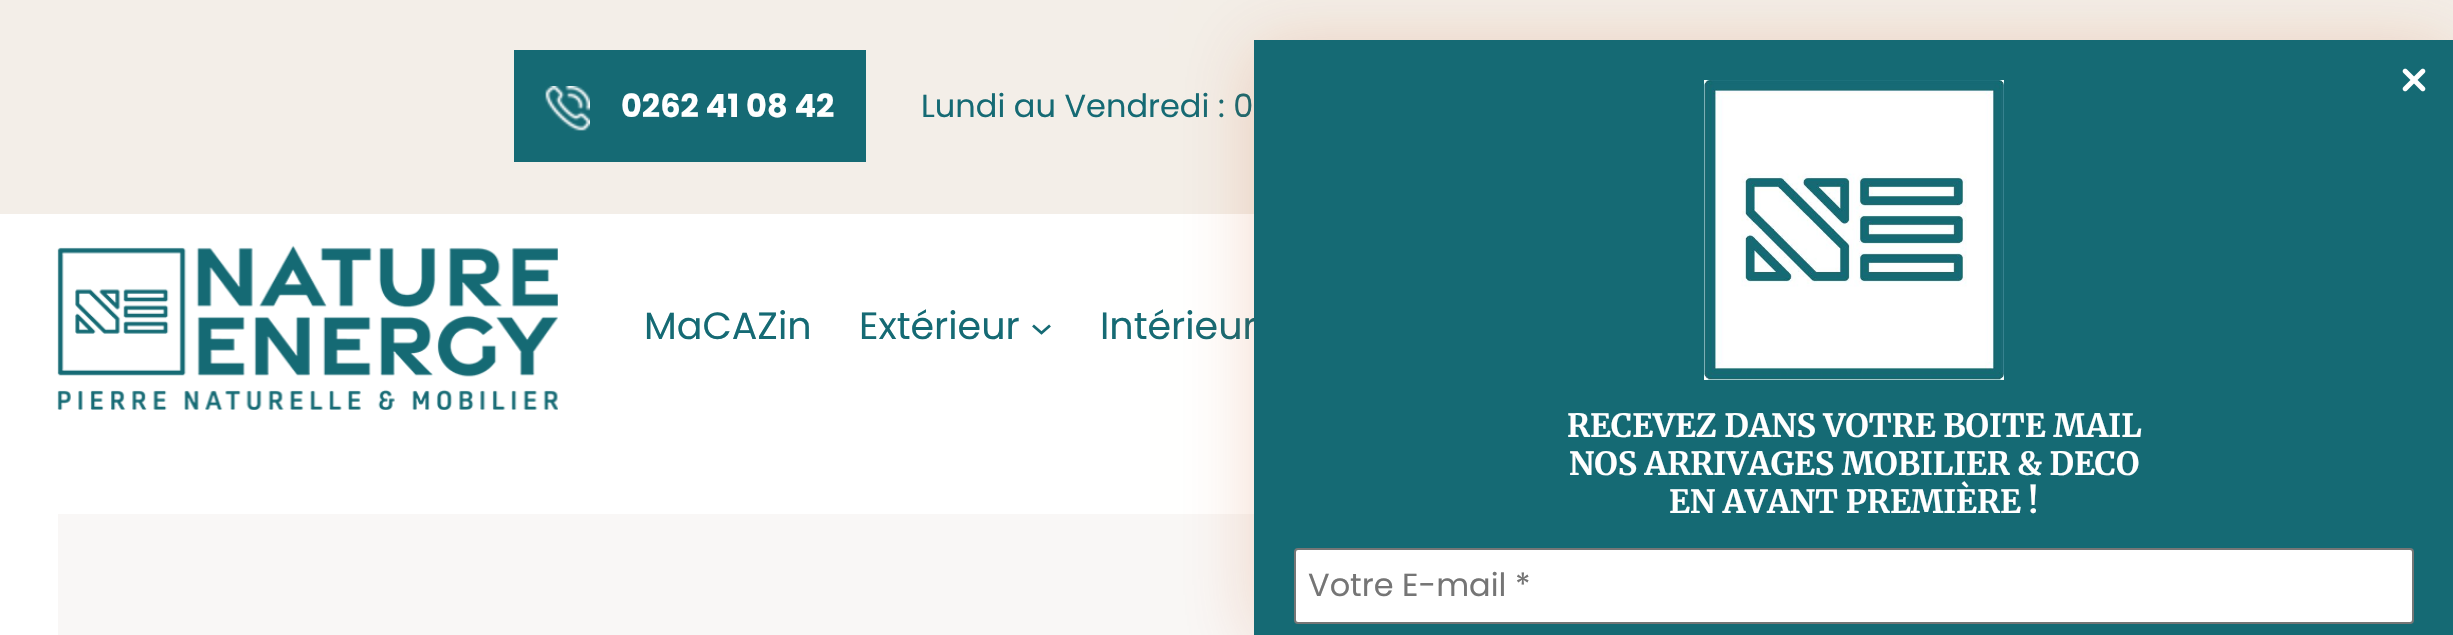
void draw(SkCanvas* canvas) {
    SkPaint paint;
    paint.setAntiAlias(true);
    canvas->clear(0xFFFFFFFF);
    paint.setColor(0xFFF3EEE8);
    canvas->drawRect(SkRect::MakeXYWH(0, 0, 2453, 214), paint);
    paint.setColor(0xFF156A74);
    canvas->drawRect(SkRect::MakeXYWH(514, 50, 352, 112), paint);
    canvas->drawImageRect(SkImages::DeferredFromEncodedData(SkData::MakeFromFileName("img1.png")), SkRect::MakeXYWH(545, 86, 45, 45), SkSamplingOptions());
    SkFont font1(fontMgr->matchFamilyStyle("Poppins", SkFontStyle::Bold()), 32);
    font1.setSubpixel(true);
    paint.setColor(0xFFFFFFFF);
    canvas->drawString("0262 41 08 42", 621, 117, font1, paint);
    SkFont font2(fontMgr->matchFamilyStyle("Poppins", SkFontStyle::Normal()), 32);
    font2.setSubpixel(true);
    paint.setColor(0xFF156A74);
    canvas->drawString("Lundi au Vendredi : 0", 921, 117, font2, paint);
    canvas->drawImageRect(SkImages::DeferredFromEncodedData(SkData::MakeFromFileName("img2.png")), SkRect::MakeXYWH(57, 245, 501, 165), SkSamplingOptions());
    SkFont font3(fontMgr->matchFamilyStyle("Poppins", SkFontStyle::Normal()), 38);
    font3.setSubpixel(true);
    canvas->drawString("MaCAZin", 644, 339, font3, paint);
    canvas->drawString("Extérieur", 859, 339, font3, paint);
    paint.setStyle(SkPaint::kStroke_Style);
    paint.setStrokeWidth(2.8f);
    canvas->drawPath(SkPathBuilder().moveTo(1033, 325.5f).lineTo(1041.5f, 333).lineTo(1050, 325.5f).detach(), paint);
    paint.setStyle(SkPaint::kFill_Style);
    canvas->drawString("Intérieur", 1100, 339, font3, paint);
    paint.setColor(0xFFF9F7F6);
    canvas->drawRect(SkRect::MakeXYWH(58, 514, 1196, 121), paint);
    paint.setColor(0x33C34102);
    paint.setMaskFilter(SkMaskFilter::MakeBlur(kNormal_SkBlurStyle, 35));
    canvas->drawRect(SkRect::MakeXYWH(1254, 48, 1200, 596), paint);
    paint.setMaskFilter(nullptr);
    paint.setColor(0xFF156A74);
    canvas->drawRect(SkRect::MakeXYWH(1254, 40, 1199, 595), paint);
    canvas->drawImageRect(SkImages::DeferredFromEncodedData(SkData::MakeFromFileName("img3.png")), SkRect::MakeXYWH(2402, 68, 24, 24), SkSamplingOptions());
    canvas->drawImageRect(SkImages::DeferredFromEncodedData(SkData::MakeFromFileName("img4.png")), SkRect::MakeXYWH(1704, 80, 300, 300), SkSamplingOptions());
    SkFont font4(fontMgr->matchFamilyStyle("Merriweather", SkFontStyle::Bold()), 32);
    font4.setSubpixel(true);
    paint.setColor(0xFFFFFFFF);
    canvas->drawString("RECEVEZ DANS VOTRE BOITE MAIL", 1567, 437, font4, paint);
    canvas->drawString("NOS ARRIVAGES MOBILIER & DECO", 1569, 475, font4, paint);
    canvas->drawString("EN AVANT PREMIÈRE !", 1669, 513, font4, paint);
    canvas->drawRoundRect(SkRect::MakeXYWH(1295, 549, 1118, 74), 3, 3, paint);
    paint.setStyle(SkPaint::kStroke_Style);
    paint.setStrokeWidth(2);
    paint.setColor(0xFF767676);
    canvas->drawRoundRect(SkRect::MakeXYWH(1295, 549, 1118, 74), 3, 3, paint);
    paint.setStyle(SkPaint::kFill_Style);
    paint.setColor(0xFF757575);
    canvas->drawString("Votre E-mail *", 1308, 596, font2, paint);
}
